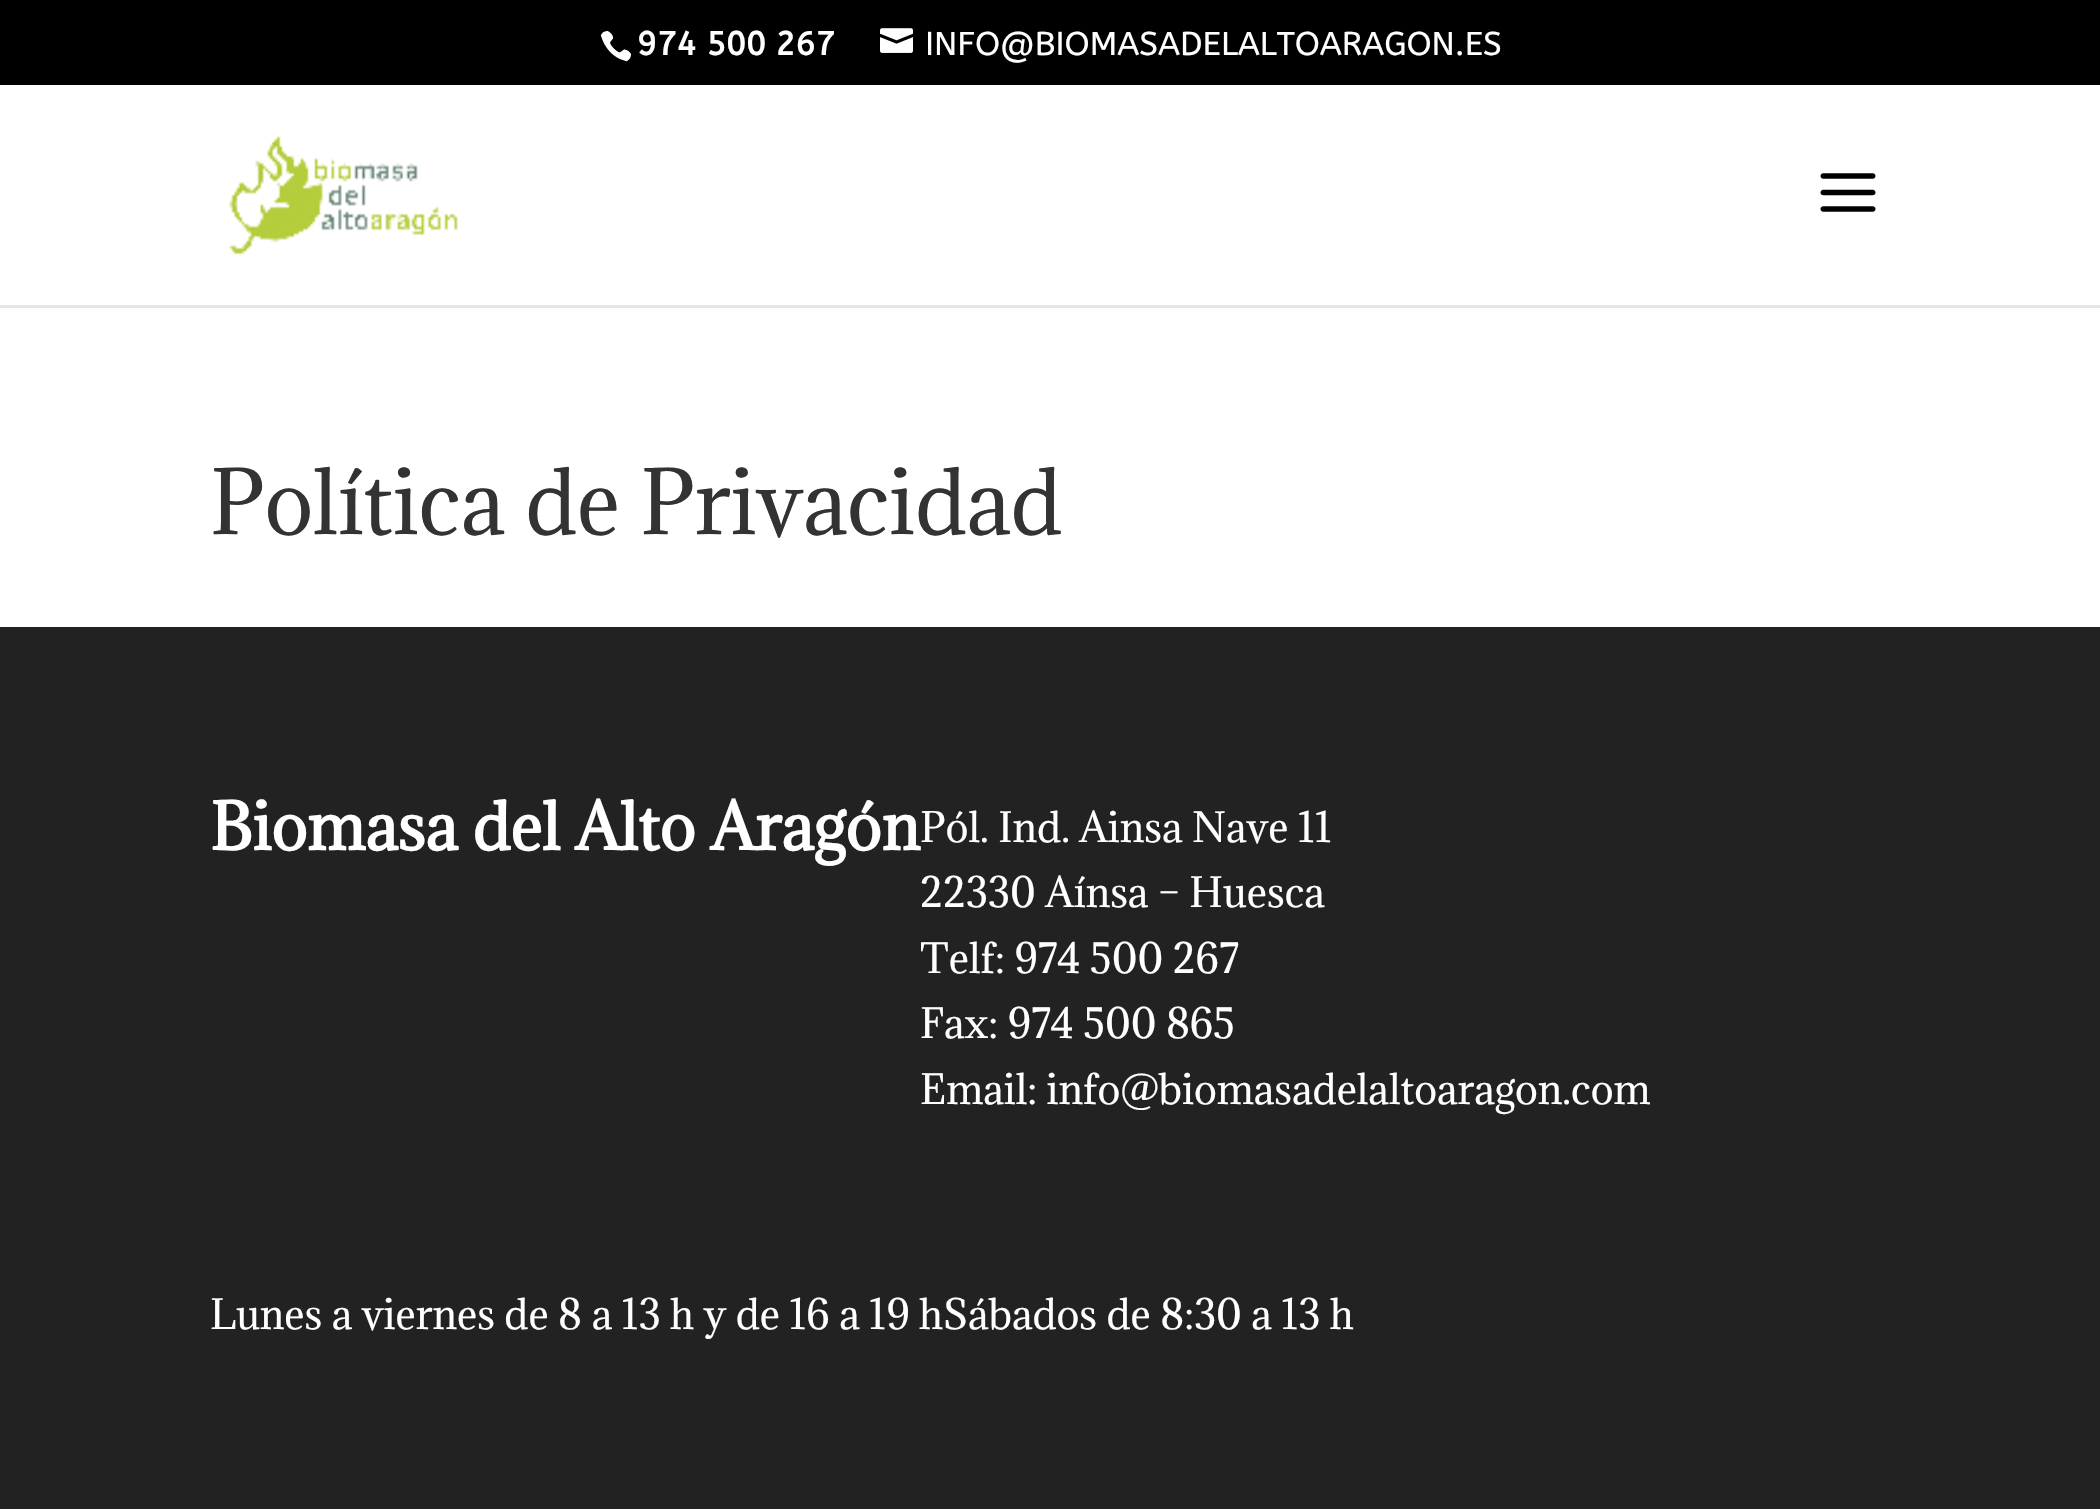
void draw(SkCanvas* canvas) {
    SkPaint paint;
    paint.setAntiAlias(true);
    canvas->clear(0xFFFFFFFF);
    paint.setColor(0xFF000000);
    canvas->drawRect(SkRect::MakeXYWH(0, 0, 2100, 85), paint);
    canvas->drawImageRect(SkImages::DeferredFromEncodedData(SkData::MakeFromFileName("img1.png")), SkRect::MakeXYWH(600, 30, 32, 32), SkSamplingOptions());
    SkFont font1(fontMgr->matchFamilyStyle("ABeeZee", SkFontStyle::Bold()), 33);
    font1.setSubpixel(true);
    paint.setColor(0xFFFFFFFF);
    canvas->drawString("974 500 267", 637, 55, font1, paint);
    canvas->drawImageRect(SkImages::DeferredFromEncodedData(SkData::MakeFromFileName("img2.png")), SkRect::MakeXYWH(880, 28, 33, 25), SkSamplingOptions());
    SkFont font2(fontMgr->matchFamilyStyle("ABeeZee", SkFontStyle::Normal()), 33);
    font2.setSubpixel(true);
    canvas->drawString("INFO@BIOMASADELALTOARAGON.ES", 925, 55, font2, paint);
    paint.setColor(0xFFE6E6E6);
    canvas->drawRect(SkRect::MakeXYWH(0, 305, 2100, 3), paint);
    canvas->drawImageRect(SkImages::DeferredFromEncodedData(SkData::MakeFromFileName("img3.png")), SkRect::MakeXYWH(229, 135, 229, 120), SkSamplingOptions());
    canvas->drawImageRect(SkImages::DeferredFromEncodedData(SkData::MakeFromFileName("img4.png")), SkRect::MakeXYWH(1820, 173, 56, 39), SkSamplingOptions());
    SkFont font3(fontMgr->matchFamilyStyle("Adamina", SkFontStyle::Normal()), 82.5f);
    font3.setSubpixel(true);
    paint.setColor(0xFF333333);
    canvas->drawString("Política de Privacidad", 210, 534, font3, paint);
    paint.setColor(0xFF222222);
    canvas->drawRect(SkRect::MakeXYWH(0, 627, 2100, 882), paint);
    SkFont font4(fontMgr->matchFamilyStyle("Adamina", SkFontStyle::Bold()), 60.5f);
    font4.setSubpixel(true);
    paint.setColor(0xFFFFFFFF);
    canvas->drawString("Biomasa del Alto Aragón", 210, 850, font4, paint);
    SkFont font5(fontMgr->matchFamilyStyle("Adamina", SkFontStyle::Normal()), 38.5f);
    font5.setSubpixel(true);
    canvas->drawString("Pól. Ind. Ainsa Nave 11", 920, 842, font5, paint);
    canvas->drawString("22330 Aínsa – Huesca", 920, 907, font5, paint);
    canvas->drawString("Telf: 974 500 267", 920, 973, font5, paint);
    canvas->drawString("Fax: 974 500 865", 920, 1038, font5, paint);
    canvas->drawString("Email: info@biomasadelaltoaragon.com", 920, 1104, font5, paint);
    canvas->drawString("Lunes a viernes de 8 a 13 h y de 16 a 19 hSábados de 8:30 a 13 h", 210, 1329, font5, paint);
}
